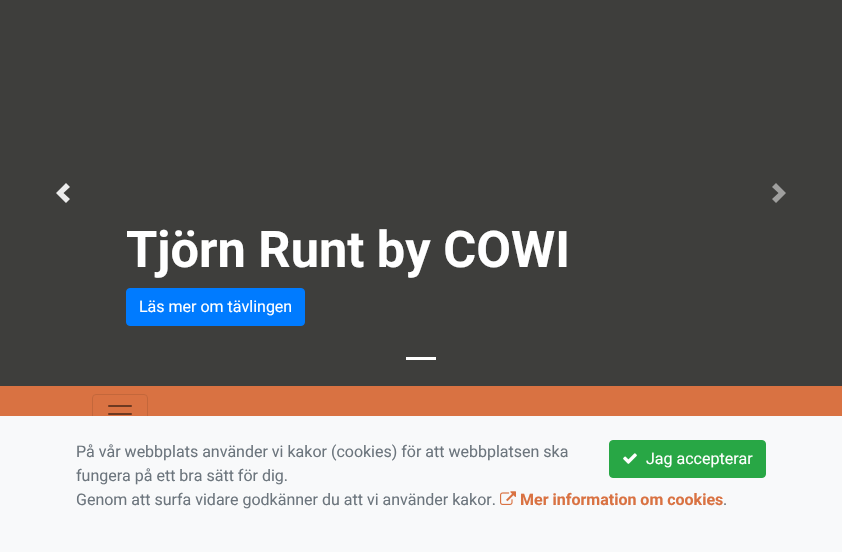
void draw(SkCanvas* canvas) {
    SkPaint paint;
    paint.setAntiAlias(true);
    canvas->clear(0xFFD97242);
    paint.setColor(0xFF3E3E3C);
    canvas->drawRect(SkRect::MakeXYWH(0, 0, 842, 386), paint);
    paint.setColor(0xFFECECEC);
    canvas->drawPath(SkPathBuilder().moveTo(66, 183).lineTo(56, 193).lineTo(66, 203).lineTo(70, 199).lineTo(63.5f, 193).lineTo(70, 187).close().detach(), paint);
    paint.setColor(0xFF9F9F9E);
    canvas->drawPath(SkPathBuilder().moveTo(776, 183).lineTo(772, 187).lineTo(778.5f, 193).lineTo(772, 199).lineTo(776, 203).lineTo(786, 193).close().detach(), paint);
    SkFont font1(fontMgr->matchFamilyStyle("Roboto", SkFontStyle::Bold()), 50.5f);
    font1.setSubpixel(true);
    paint.setColor(0xFFFFFFFF);
    canvas->drawString("Tjörn Runt by COWI", 126, 267, font1, paint);
    paint.setColor(0xFF007BFF);
    canvas->drawRoundRect(SkRect::MakeXYWH(126.5f, 288.5f, 178, 37), 3.5f, 3.5f, paint);
    paint.setStyle(SkPaint::kStroke_Style);
    paint.setStrokeWidth(1);
    canvas->drawRoundRect(SkRect::MakeXYWH(126.5f, 288.5f, 178, 37), 3.5f, 3.5f, paint);
    SkFont font2(fontMgr->matchFamilyStyle("Roboto", SkFontStyle::Normal()), 16);
    font2.setSubpixel(true);
    paint.setStyle(SkPaint::kFill_Style);
    paint.setColor(0xFFFFFFFF);
    canvas->drawString("Läs mer om tävlingen", 139, 312, font2, paint);
    canvas->drawRect(SkRect::MakeXYWH(406, 357, 30, 3), paint);
    paint.setStyle(SkPaint::kStroke_Style);
    paint.setColor(0xFFC3673B);
    canvas->drawRoundRect(SkRect::MakeXYWH(92.5f, 394.5f, 55, 39), 3.5f, 3.5f, paint);
    canvas->drawImageRect(SkImages::DeferredFromEncodedData(SkData::MakeFromFileName("img1.png")), SkRect::MakeXYWH(108, 405, 24, 10), SkSamplingOptions());
    paint.setStyle(SkPaint::kFill_Style);
    paint.setColor(0xFFF8F9FA);
    canvas->drawRect(SkRect::MakeXYWH(0, 416, 842, 136), paint);
    paint.setColor(0xFF6C757D);
    canvas->drawString("På vår webbplats använder vi kakor (cookies) för att webbplatsen ska", 76, 457, font2, paint);
    canvas->drawString("fungera på ett bra sätt för dig.", 76, 481, font2, paint);
    canvas->drawString("Genom att surfa vidare godkänner du att vi använder kakor.", 76, 505, font2, paint);
    canvas->drawImageRect(SkImages::DeferredFromEncodedData(SkData::MakeFromFileName("img2.png")), SkRect::MakeXYWH(500, 491, 16, 14), SkSamplingOptions());
    SkFont font3(fontMgr->matchFamilyStyle("Roboto", SkFontStyle::Bold()), 16);
    font3.setSubpixel(true);
    paint.setColor(0xFFD97242);
    canvas->drawString("Mer information om cookies", 520, 505, font3, paint);
    paint.setColor(0xFF6C757D);
    canvas->drawString(".", 723, 505, font2, paint);
    paint.setColor(0xFF28A745);
    canvas->drawRoundRect(SkRect::MakeXYWH(609.5f, 440.5f, 156, 37), 3.5f, 3.5f, paint);
    paint.setStyle(SkPaint::kStroke_Style);
    canvas->drawRoundRect(SkRect::MakeXYWH(609.5f, 440.5f, 156, 37), 3.5f, 3.5f, paint);
    canvas->drawImageRect(SkImages::DeferredFromEncodedData(SkData::MakeFromFileName("img3.png")), SkRect::MakeXYWH(623, 453, 14, 11), SkSamplingOptions());
    paint.setStyle(SkPaint::kFill_Style);
    paint.setColor(0xFFFFFFFF);
    canvas->drawString("Jag accepterar", 646, 464, font2, paint);
}
